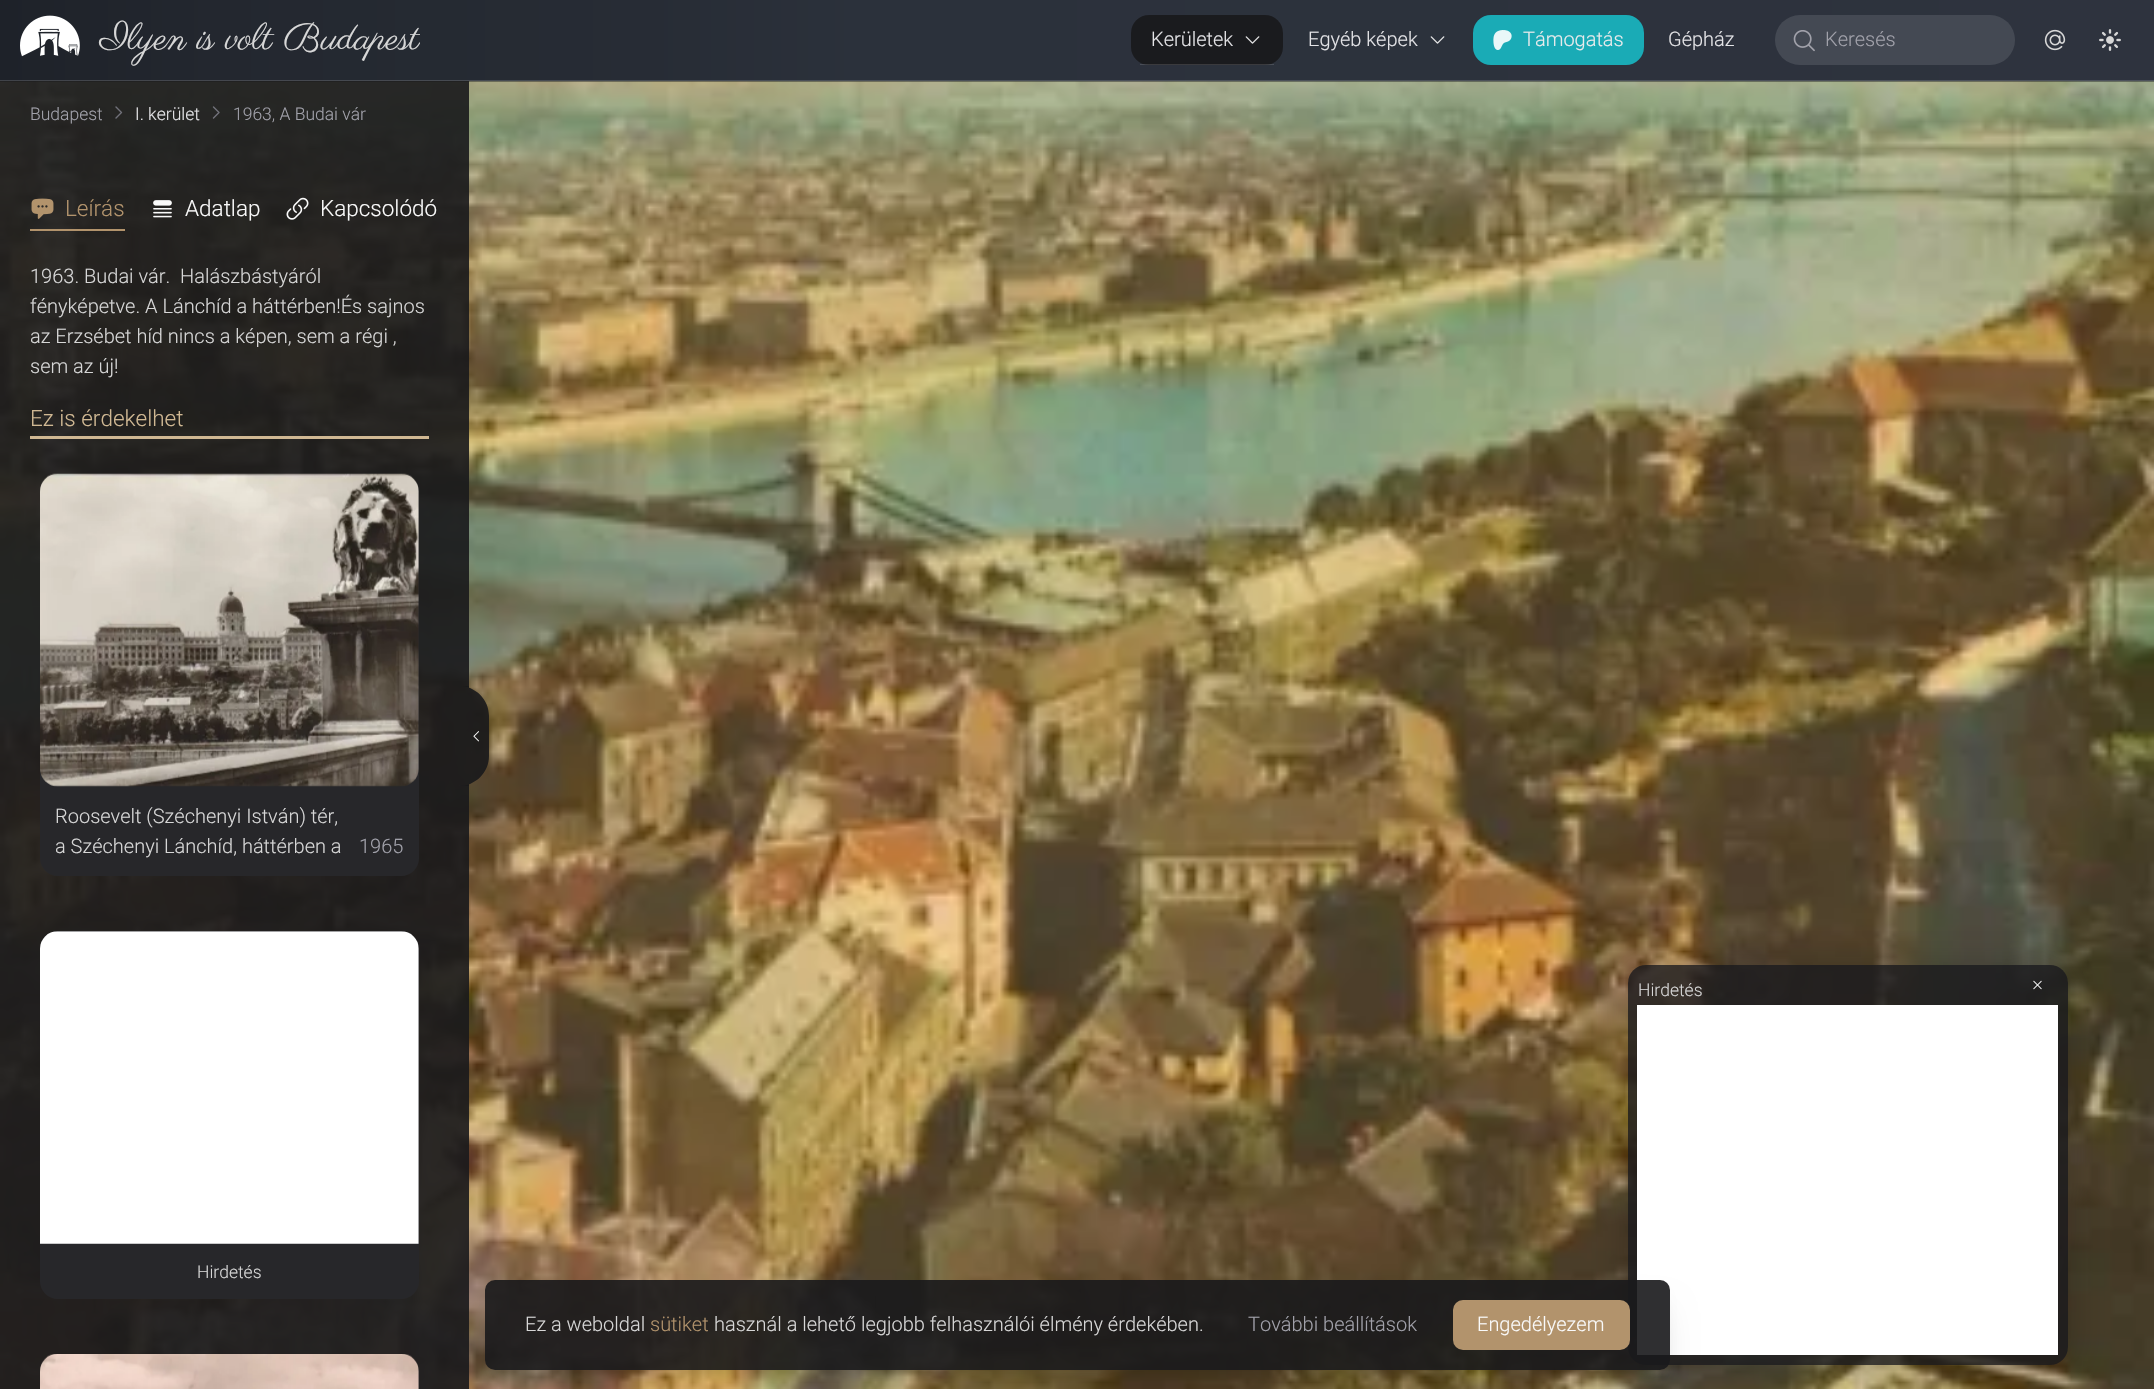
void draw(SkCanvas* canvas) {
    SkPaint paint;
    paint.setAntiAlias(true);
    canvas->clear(0xFF1A1D21);
    {
        const SkColor colors[] = {0xFF1E2229, 0xFF23272F, 0xFF252A32, 0xFF272C35, 0xFF2B313B, 0xFF2E333E};
        const float stops[] = {0, 0.1f, 0.2f, 0.3f, 0.4f, 1};
        const SkPoint ends[] = {{0, 695}, {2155, 695}};
        paint.setShader(SkGradientShader::MakeLinear(ends, colors, stops, 6, SkTileMode::kClamp));
        paint.setAlpha(255);
    }
    canvas->drawRect(SkRect::MakeXYWH(0, 0, 2154, 80), paint);
    {
        const SkColor colors[] = {0xFF404349, 0xFF44474E, 0xFF464A51, 0xFF474C53, 0xFF4B5058, 0xFF4D525B};
        const float stops[] = {0, 0.1f, 0.2f, 0.3f, 0.4f, 1};
        const SkPoint ends[] = {{0, 695}, {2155, 695}};
        paint.setShader(SkGradientShader::MakeLinear(ends, colors, stops, 6, SkTileMode::kClamp));
        paint.setAlpha(255);
    }
    canvas->drawRect(SkRect::MakeXYWH(0, 80, 2154, 1), paint);
    canvas->drawImageRect(SkImages::DeferredFromEncodedData(SkData::MakeFromFileName("img1.png")), SkRect::MakeXYWH(20, 15, 60, 42), SkSamplingOptions());
    canvas->save();
    canvas->clipRect(SkRect::MakeXYWH(95, 13, 325, 55));
    SkFont font1(fontMgr->matchFamilyStyle("Parisienne", SkFontStyle::Normal()), 37.5f);
    font1.setSubpixel(true);
    paint.setShader(nullptr);
    paint.setColor(0xFFD7D7D7);
    canvas->drawString("Ilyen is volt Budapest", 100, 49, font1, paint);
    canvas->restore();
    paint.setColor(0xFF1A1B1E);
    canvas->drawRoundRect(SkRect::MakeXYWH(1131, 15, 152, 50), 18, 18, paint);
    paint.setColor(0x26EAEAEC);
    canvas->drawRect(SkRect::MakeXYWH(1140, 64, 134, 1), paint);
    SkFont font2(fontMgr->matchFamilyStyle("Roboto", SkFontStyle(300, SkFontStyle::kNormal_Width, SkFontStyle::kUpright_Slant)), 20);
    font2.setSubpixel(true);
    paint.setColor(0xFFE4E4E7);
    canvas->drawString("Kerületek", 1151, 46, font2, paint);
    canvas->drawImageRect(SkImages::DeferredFromEncodedData(SkData::MakeFromFileName("img2.png")), SkRect::MakeXYWH(1245, 36, 15, 8), SkSamplingOptions());
    canvas->drawString("Egyéb képek", 1308, 46, font2, paint);
    canvas->drawImageRect(SkImages::DeferredFromEncodedData(SkData::MakeFromFileName("img3.png")), SkRect::MakeXYWH(1430, 36, 15, 8), SkSamplingOptions());
    paint.setColor(0xFF1AABB6);
    canvas->drawRoundRect(SkRect::MakeXYWH(1473, 15, 171, 50), 18, 18, paint);
    canvas->drawImageRect(SkImages::DeferredFromEncodedData(SkData::MakeFromFileName("img4.png")), SkRect::MakeXYWH(1493, 30, 19, 20), SkSamplingOptions());
    paint.setColor(0xFFEAEBEC);
    canvas->drawString("Támogatás", 1523, 46, font2, paint);
    paint.setColor(0xFFE4E4E7);
    canvas->drawString("Gépház", 1668, 46, font2, paint);
    paint.setColor(0xFF444953);
    canvas->drawRoundRect(SkRect::MakeXYWH(1775, 15, 240, 50), 25, 25, paint);
    canvas->drawImageRect(SkImages::DeferredFromEncodedData(SkData::MakeFromFileName("img5.png")), SkRect::MakeXYWH(1793, 30, 22, 22), SkSamplingOptions());
    paint.setColor(0xFFA1A1AA);
    canvas->drawString("Keresés", 1825, 46, font2, paint);
    canvas->drawImageRect(SkImages::DeferredFromEncodedData(SkData::MakeFromFileName("img6.png")), SkRect::MakeXYWH(2044, 29, 22, 22), SkSamplingOptions());
    canvas->drawImageRect(SkImages::DeferredFromEncodedData(SkData::MakeFromFileName("img7.png")), SkRect::MakeXYWH(2099, 29, 22, 22), SkSamplingOptions());
    canvas->drawImageRect(SkImages::DeferredFromEncodedData(SkData::MakeFromFileName("img8.png")), SkRect::MakeXYWH(0, 81, 2154, 1308), SkSamplingOptions());
    paint.setColor(0xE618181B);
    canvas->drawRect(SkRect::MakeXYWH(0, 81, 469, 1308), paint);
    SkFont font3(fontMgr->matchFamilyStyle("Roboto", SkFontStyle(300, SkFontStyle::kNormal_Width, SkFontStyle::kUpright_Slant)), 17.5f);
    font3.setSubpixel(true);
    paint.setColor(0xFFA1A1AA);
    canvas->drawString("Budapest", 30, 120, font3, paint);
    paint.setStyle(SkPaint::kStroke_Style);
    paint.setStrokeWidth(1.4f);
    paint.setStrokeCap(SkPaint::kRound_Cap);
    paint.setStrokeJoin(SkPaint::kRound_Join);
    paint.setColor(0xFF71717A);
    canvas->drawPath(SkPathBuilder().moveTo(116, 118).lineTo(121.5f, 112.5f).lineTo(116, 107).detach(), paint);
    paint.setStyle(SkPaint::kFill_Style);
    paint.setColor(0xFFE4E4E7);
    canvas->drawString("I. kerület", 135, 120, font3, paint);
    paint.setStyle(SkPaint::kStroke_Style);
    paint.setColor(0xFF71717A);
    canvas->drawPath(SkPathBuilder().moveTo(213.5f, 118).lineTo(219, 112.5f).lineTo(213.5f, 107).detach(), paint);
    paint.setStyle(SkPaint::kFill_Style);
    paint.setColor(0xFFA1A1AA);
    canvas->drawString("1963, A Budai vár", 233, 120, font3, paint);
    canvas->drawImageRect(SkImages::DeferredFromEncodedData(SkData::MakeFromFileName("img9.png")), SkRect::MakeXYWH(31, 198, 23, 21), SkSamplingOptions());
    SkFont font4(fontMgr->matchFamilyStyle("Roboto", SkFontStyle(300, SkFontStyle::kNormal_Width, SkFontStyle::kUpright_Slant)), 22.5f);
    font4.setSubpixel(true);
    paint.setColor(0xFFB2936C);
    canvas->drawString("Leírás", 65, 216, font4, paint);
    canvas->drawRect(SkRect::MakeXYWH(30, 229, 95, 2), paint);
    canvas->drawImageRect(SkImages::DeferredFromEncodedData(SkData::MakeFromFileName("img10.png")), SkRect::MakeXYWH(153, 200, 19, 18), SkSamplingOptions());
    paint.setColor(0xFFFAFAFA);
    canvas->drawString("Adatlap", 185, 216, font4, paint);
    canvas->drawImageRect(SkImages::DeferredFromEncodedData(SkData::MakeFromFileName("img11.png")), SkRect::MakeXYWH(286, 197, 23, 23), SkSamplingOptions());
    canvas->drawString("Kapcsolódó", 320, 216, font4, paint);
    paint.setColor(0xFFD7D7D7);
    canvas->drawString("1963. Budai vár.  Halászbástyáról", 30, 283, font2, paint);
    canvas->drawString("fényképetve. A Lánchíd a háttérben!És sajnos", 30, 313, font2, paint);
    canvas->drawString("az Erzsébet híd nincs a képen, sem a régi ,", 30, 343, font2, paint);
    canvas->drawString("sem az új!", 30, 373, font2, paint);
    paint.setColor(0xFFD0B893);
    canvas->drawRect(SkRect::MakeXYWH(30, 436, 399, 3), paint);
    canvas->drawString("Ez is érdekelhet", 30, 426, font4, paint);
    paint.setColor(0xFF27272A);
    canvas->drawPath(SkPathBuilder().moveTo(58, 474).lineTo(401, 474).cubicTo(411, 474, 419, 482, 419, 492).lineTo(419, 786).lineTo(40, 786).lineTo(40, 492).cubicTo(40, 482, 48, 474, 58, 474).close().detach(), paint);
    canvas->drawPath(SkPathBuilder().moveTo(40, 786).lineTo(419, 786).lineTo(419, 858).cubicTo(419, 868, 411, 876, 401, 876).lineTo(58, 876).cubicTo(48, 876, 40, 868, 40, 858).close().detach(), paint);
    canvas->drawImageRect(SkImages::DeferredFromEncodedData(SkData::MakeFromFileName("img12.png")), SkRect::MakeXYWH(40, 473, 379, 314), SkSamplingOptions());
    paint.setColor(0xFFD7D7D7);
    canvas->drawString("Roosevelt (Széchenyi István) tér,", 55, 823, font2, paint);
    canvas->drawString("a Széchenyi Lánchíd, háttérben a", 55, 853, font2, paint);
    paint.setColor(0xFFA1A1AA);
    canvas->drawString("1965", 359, 853, font2, paint);
    paint.setColor(0xFF27272A);
    canvas->drawPath(SkPathBuilder().moveTo(58, 931).lineTo(401, 931).cubicTo(411, 931, 419, 939, 419, 949).lineTo(419, 1244).lineTo(40, 1244).lineTo(40, 949).cubicTo(40, 939, 48, 931, 58, 931).close().detach(), paint);
    canvas->drawImageRect(SkImages::DeferredFromEncodedData(SkData::MakeFromFileName("img13.png")), SkRect::MakeXYWH(40, 931, 379, 313), SkSamplingOptions());
    canvas->drawPath(SkPathBuilder().moveTo(40, 1244).lineTo(419, 1244).lineTo(419, 1281).cubicTo(419, 1291, 411, 1299, 401, 1299).lineTo(58, 1299).cubicTo(48, 1299, 40, 1291, 40, 1281).close().detach(), paint);
    paint.setColor(0xFFD7D7D7);
    canvas->drawString("Hirdetés", 197, 1278, font3, paint);
    paint.setColor(0xFF27272A);
    canvas->drawPath(SkPathBuilder().moveTo(58, 1354).lineTo(401, 1354).cubicTo(411, 1354, 419, 1362, 419, 1372).lineTo(419, 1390).lineTo(40, 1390).lineTo(40, 1372).cubicTo(40, 1362, 48, 1354, 58, 1354).close().detach(), paint);
    canvas->drawImageRect(SkImages::DeferredFromEncodedData(SkData::MakeFromFileName("img14.png")), SkRect::MakeXYWH(40, 1354, 379, 35), SkSamplingOptions());
    paint.setColor(0xE618181B);
    canvas->drawPath(SkPathBuilder().moveTo(469, 686).lineTo(459, 686).cubicTo(475.5f, 686, 489, 699.5f, 489, 716).lineTo(489, 756).cubicTo(489, 772.5f, 475.5f, 786, 459, 786).lineTo(469, 786).close().detach(), paint);
    canvas->drawImageRect(SkImages::DeferredFromEncodedData(SkData::MakeFromFileName("img15.png")), SkRect::MakeXYWH(473, 731, 6, 11), SkSamplingOptions());
    canvas->save();
    canvas->clipPath(SkPathBuilder(SkPathFillType::kEvenOdd).moveTo(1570, 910).lineTo(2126, 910).lineTo(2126, 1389).lineTo(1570, 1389).close().moveTo(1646, 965).lineTo(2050, 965).cubicTo(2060, 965, 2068, 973, 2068, 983).lineTo(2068, 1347).cubicTo(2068, 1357, 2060, 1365, 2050, 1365).lineTo(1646, 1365).cubicTo(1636, 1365, 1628, 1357, 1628, 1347).lineTo(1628, 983).cubicTo(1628, 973, 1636, 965, 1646, 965).close().detach(), true);
    paint.setColor(0x38000000);
    paint.setMaskFilter(SkMaskFilter::MakeBlur(kNormal_SkBlurStyle, 19));
    canvas->drawRoundRect(SkRect::MakeXYWH(1628, 968, 440, 400), 18, 18, paint);
    paint.setMaskFilter(nullptr);
    canvas->restore();
    paint.setColor(0xCC18181B);
    canvas->drawRoundRect(SkRect::MakeXYWH(1628, 965, 440, 400), 18, 18, paint);
    paint.setColor(0xFFD7D7D7);
    canvas->drawString("Hirdetés", 1638, 996, font3, paint);
    canvas->drawImageRect(SkImages::DeferredFromEncodedData(SkData::MakeFromFileName("img16.png")), SkRect::MakeXYWH(2033, 980, 9, 10), SkSamplingOptions());
    paint.setColor(0xFFFFFFFF);
    canvas->drawRect(SkRect::MakeXYWH(1637, 1005, 421, 350), paint);
    canvas->save();
    canvas->clipPath(SkPathBuilder(SkPathFillType::kEvenOdd).moveTo(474, 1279).lineTo(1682, 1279).lineTo(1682, 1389).lineTo(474, 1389).close().moveTo(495, 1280).lineTo(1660, 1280).cubicTo(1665.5f, 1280, 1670, 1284.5f, 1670, 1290).lineTo(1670, 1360).cubicTo(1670, 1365.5f, 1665.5f, 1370, 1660, 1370).lineTo(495, 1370).cubicTo(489.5f, 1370, 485, 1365.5f, 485, 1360).lineTo(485, 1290).cubicTo(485, 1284.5f, 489.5f, 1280, 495, 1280).close().detach(), true);
    paint.setColor(0x1A000000);
    paint.setMaskFilter(SkMaskFilter::MakeBlur(kNormal_SkBlurStyle, 6));
    canvas->drawRoundRect(SkRect::MakeXYWH(493, 1298, 1170, 75), 2.5f, 2.5f, paint);
    paint.setMaskFilter(nullptr);
    canvas->restore();
    canvas->save();
    canvas->clipPath(SkPathBuilder(SkPathFillType::kEvenOdd).moveTo(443, 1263).lineTo(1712, 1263).lineTo(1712, 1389).lineTo(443, 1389).close().moveTo(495, 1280).lineTo(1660, 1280).cubicTo(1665.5f, 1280, 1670, 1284.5f, 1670, 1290).lineTo(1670, 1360).cubicTo(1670, 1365.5f, 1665.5f, 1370, 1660, 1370).lineTo(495, 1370).cubicTo(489.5f, 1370, 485, 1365.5f, 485, 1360).lineTo(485, 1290).cubicTo(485, 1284.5f, 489.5f, 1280, 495, 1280).close().detach(), true);
    paint.setMaskFilter(SkMaskFilter::MakeBlur(kNormal_SkBlurStyle, 15.5f));
    canvas->drawRoundRect(SkRect::MakeXYWH(491, 1311, 1173, 78), 4, 4, paint);
    paint.setMaskFilter(nullptr);
    canvas->restore();
    paint.setColor(0xE618181B);
    canvas->drawRoundRect(SkRect::MakeXYWH(485, 1280, 1185, 90), 10, 10, paint);
    paint.setColor(0xFFD7D7D7);
    canvas->drawString("Ez a weboldal", 525, 1331, font2, paint);
    paint.setColor(0xFFB2936C);
    canvas->drawString("sütiket", 650, 1331, font2, paint);
    paint.setColor(0xFFD7D7D7);
    canvas->drawString("használ a lehető legjobb felhasználói élmény érdekében.", 714, 1331, font2, paint);
    paint.setColor(0xFFA1A1AA);
    canvas->drawString("További beállítások", 1248, 1331, font2, paint);
    paint.setColor(0xFFB2936C);
    canvas->drawRoundRect(SkRect::MakeXYWH(1453, 1300, 177, 50), 10, 10, paint);
    paint.setColor(0xFFFAFAFA);
    canvas->drawString("Engedélyezem", 1477, 1331, font2, paint);
}
